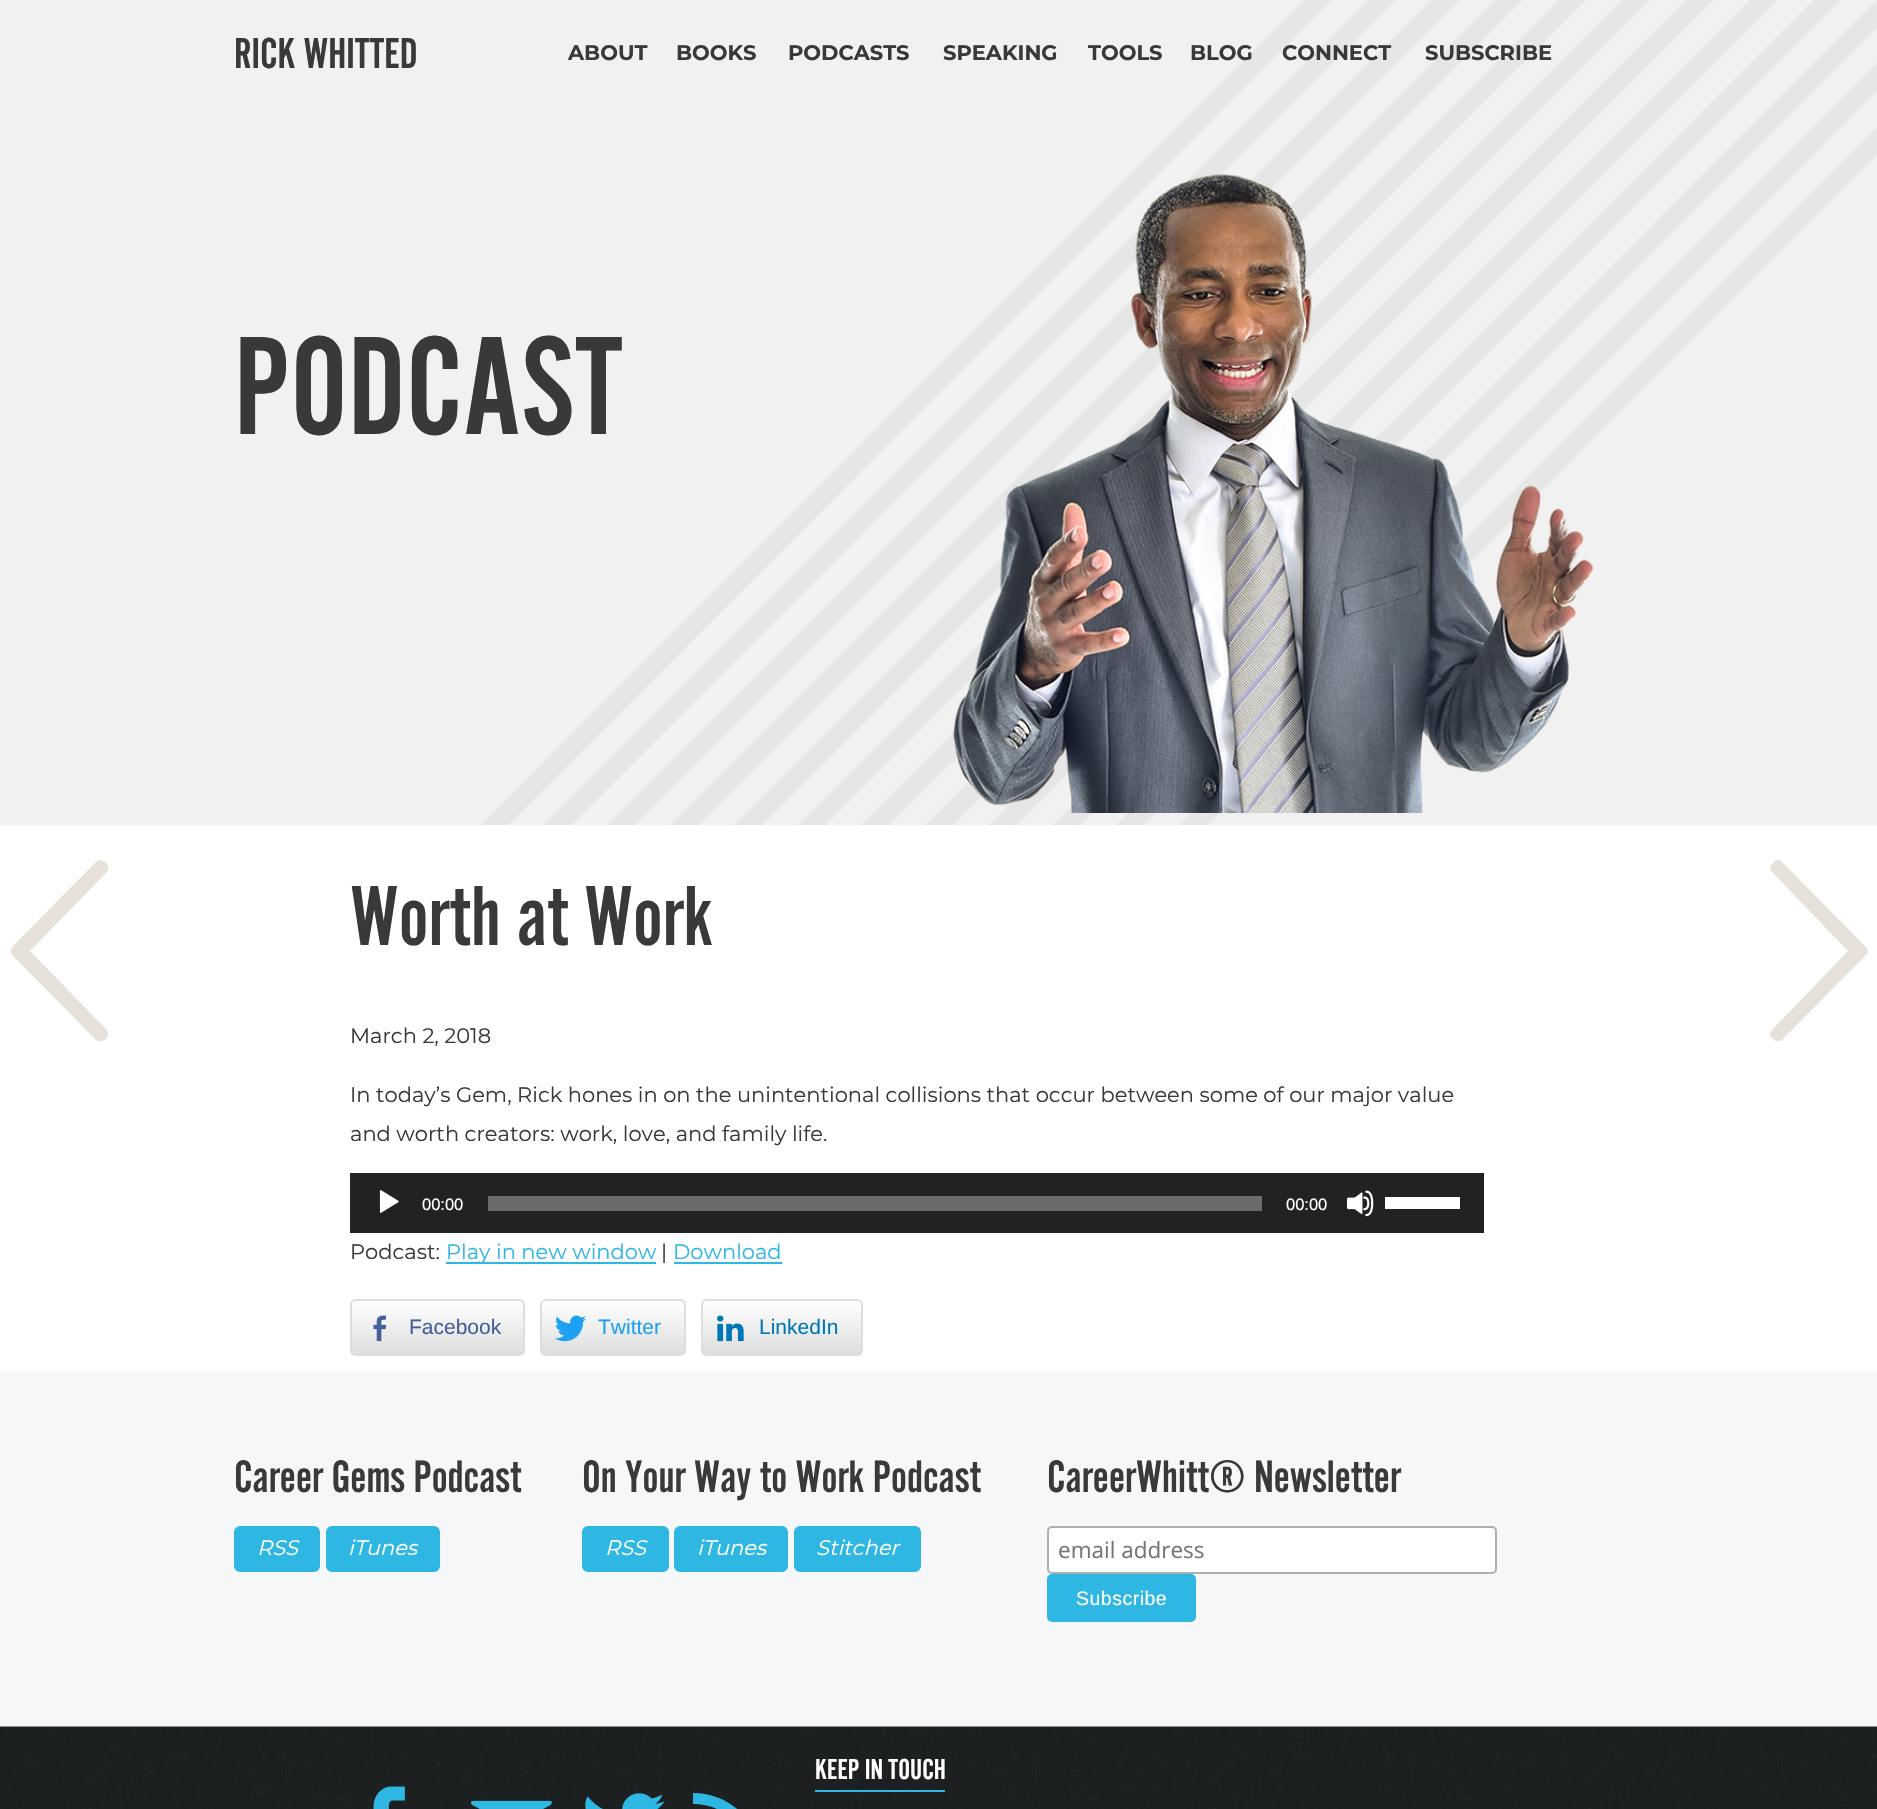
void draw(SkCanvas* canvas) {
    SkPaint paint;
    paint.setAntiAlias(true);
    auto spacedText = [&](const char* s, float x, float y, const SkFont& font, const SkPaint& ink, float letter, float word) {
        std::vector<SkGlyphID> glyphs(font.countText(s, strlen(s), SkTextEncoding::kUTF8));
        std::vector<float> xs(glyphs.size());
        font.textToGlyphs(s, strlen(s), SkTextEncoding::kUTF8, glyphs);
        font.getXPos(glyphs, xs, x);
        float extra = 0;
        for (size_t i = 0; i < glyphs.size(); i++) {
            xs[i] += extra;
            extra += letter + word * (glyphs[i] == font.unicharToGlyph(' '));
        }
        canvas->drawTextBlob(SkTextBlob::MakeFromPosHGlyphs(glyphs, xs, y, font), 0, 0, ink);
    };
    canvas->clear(0xFFFFFFFF);
    paint.setColor(0xFFF1F1F1);
    canvas->drawRect(SkRect::MakeXYWH(0, 0, 1877, 825), paint);
    SkFont font1(fontMgr->matchFamilyStyle("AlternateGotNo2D", SkFontStyle::Normal()), 45);
    font1.setSubpixel(true);
    paint.setColor(0xFF3A383A);
    canvas->drawString("RICK WHITTED", 234, 68, font1, paint);
    canvas->drawImageRect(SkImages::DeferredFromEncodedData(SkData::MakeFromFileName("img1.png")), SkRect::MakeXYWH(481, 0, 1396, 825), SkSamplingOptions());
    SkFont font2(fontMgr->matchFamilyStyle("Montserrat", SkFontStyle::Bold()), 21);
    font2.setSubpixel(true);
    canvas->drawString("ABOUT", 568, 60, font2, paint);
    canvas->drawString("BOOKS", 676, 60, font2, paint);
    canvas->drawString("PODCASTS", 788, 60, font2, paint);
    canvas->drawString("SPEAKING", 943, 60, font2, paint);
    canvas->drawString("TOOLS", 1088, 60, font2, paint);
    canvas->drawString("BLOG", 1190, 60, font2, paint);
    canvas->drawString("CONNECT", 1282, 60, font2, paint);
    canvas->drawString("SUBSCRIBE", 1425, 60, font2, paint);
    SkFont font3(fontMgr->matchFamilyStyle("AlternateGotNo2D", SkFontStyle::Normal()), 145.5f);
    font3.setSubpixel(true);
    canvas->drawString("PODCAST", 234, 434, font3, paint);
    canvas->drawImageRect(SkImages::DeferredFromEncodedData(SkData::MakeFromFileName("img2.png")), SkRect::MakeXYWH(953, 174, 641, 639), SkSamplingOptions());
    paint.setColor(0xFFE6E2DA);
    canvas->drawPath(SkPathBuilder().moveTo(106, 1029).cubicTo(109, 1032, 109, 1036, 106, 1039).cubicTo(102, 1042, 99, 1042, 95, 1039).lineTo(13, 956).cubicTo(10, 953, 10, 949, 13, 946).lineTo(95, 863).cubicTo(99, 859, 102, 859, 106, 863).cubicTo(109, 866, 109, 869, 106, 873).lineTo(30, 951).close().detach(), paint);
    canvas->drawPath(SkPathBuilder().moveTo(1773, 1029).lineTo(1848, 951).lineTo(1773, 873).cubicTo(1769, 869, 1769, 866, 1773, 863).cubicTo(1777, 859, 1780, 859, 1783, 863).lineTo(1865, 946).cubicTo(1869, 949, 1869, 953, 1865, 956).lineTo(1783, 1039).cubicTo(1780, 1042, 1777, 1042, 1773, 1039).cubicTo(1769, 1036, 1769, 1032, 1773, 1029).close().detach(), paint);
    SkFont font4(fontMgr->matchFamilyStyle("AlternateGotNo2D", SkFontStyle::Normal()), 88.5f);
    font4.setSubpixel(true);
    paint.setColor(0xFF3A383A);
    canvas->drawString("Worth at Work", 350, 945, font4, paint);
    SkFont font5(fontMgr->matchFamilyStyle("Montserrat", SkFontStyle::Normal()), 21);
    font5.setSubpixel(true);
    canvas->drawString("March 2, 2018", 350, 1043, font5, paint);
    canvas->drawString("In today’s Gem, Rick hones in on the unintentional collisions that occur between some of our major value", 350, 1102, font5, paint);
    canvas->drawString("and worth creators: work, love, and family life.", 350, 1141, font5, paint);
    paint.setColor(0xFF222222);
    canvas->drawRect(SkRect::MakeXYWH(350, 1173, 1134, 60), paint);
    canvas->drawImageRect(SkImages::DeferredFromEncodedData(SkData::MakeFromFileName("img3.png")), SkRect::MakeXYWH(379, 1190, 20, 23), SkSamplingOptions());
    SkFont font6(fontMgr->matchFamilyStyle("Liberation Sans", SkFontStyle::Normal()), 16.5f);
    font6.setSubpixel(true);
    paint.setColor(0xFFFFFFFF);
    canvas->drawString("00:00", 422, 1210, font6, paint);
    paint.setColor(0xFF6B6B6B);
    canvas->drawRect(SkRect::MakeXYWH(488, 1196, 774, 15), paint);
    paint.setColor(0xFFFFFFFF);
    canvas->drawString("00:00", 1286, 1210, font6, paint);
    canvas->drawImageRect(SkImages::DeferredFromEncodedData(SkData::MakeFromFileName("img4.png")), SkRect::MakeXYWH(1347, 1190, 27, 27), SkSamplingOptions());
    canvas->drawRect(SkRect::MakeXYWH(1385, 1197, 75, 12), paint);
    paint.setColor(0xFF3A383A);
    canvas->drawString("Podcast:", 350, 1259, font5, paint);
    paint.setColor(0xFF2FB7E4);
    canvas->drawRect(SkRect::MakeXYWH(446, 1262, 210, 2), paint);
    canvas->drawString("Play in new window", 446, 1259, font5, paint);
    paint.setColor(0xFF3A383A);
    canvas->drawString("|", 661, 1259, font5, paint);
    paint.setColor(0xFF2FB7E4);
    canvas->drawString("Download", 673, 1259, font5, paint);
    canvas->drawRect(SkRect::MakeXYWH(674, 1262, 108, 2), paint);
    canvas->save();
    canvas->clipPath(SkPathBuilder().moveTo(356, 1299).lineTo(519, 1299).cubicTo(522.5f, 1299, 525, 1301.5f, 525, 1305).lineTo(525, 1350).cubicTo(525, 1353.5f, 522.5f, 1356, 519, 1356).lineTo(356, 1356).cubicTo(352.5f, 1356, 350, 1353.5f, 350, 1350).lineTo(350, 1305).cubicTo(350, 1301.5f, 352.5f, 1299, 356, 1299).close().detach(), true);
    {
        const SkColor colors[] = {0xFFFFFFFF, 0xFFDDDDDD};
        const float stops[] = {0, 1};
        const SkPoint ends[] = {{437, 1301}, {437, 1355}};
        paint.setShader(SkGradientShader::MakeLinear(ends, colors, stops, 2, SkTileMode::kClamp));
        paint.setAlpha(255);
    }
    canvas->drawRect(SkRect::MakeXYWH(350, 1301, 175, 54), paint);
    canvas->restore();
    paint.setStyle(SkPaint::kStroke_Style);
    paint.setStrokeWidth(2);
    paint.setShader(nullptr);
    paint.setColor(0xFFDEDEDE);
    canvas->drawRoundRect(SkRect::MakeXYWH(351, 1300, 173, 55), 5, 5, paint);
    canvas->drawImageRect(SkImages::DeferredFromEncodedData(SkData::MakeFromFileName("img5.png")), SkRect::MakeXYWH(373, 1315, 14, 27), SkSamplingOptions());
    SkFont font7(fontMgr->matchFamilyStyle("Liberation Sans", SkFontStyle::Normal()), 21);
    font7.setSubpixel(true);
    paint.setStyle(SkPaint::kFill_Style);
    paint.setColor(0xFF43609C);
    canvas->drawString("Facebook", 409, 1334, font7, paint);
    canvas->save();
    canvas->clipPath(SkPathBuilder().moveTo(546, 1299).lineTo(680, 1299).cubicTo(683.5f, 1299, 686, 1301.5f, 686, 1305).lineTo(686, 1350).cubicTo(686, 1353.5f, 683.5f, 1356, 680, 1356).lineTo(546, 1356).cubicTo(542.5f, 1356, 540, 1353.5f, 540, 1350).lineTo(540, 1305).cubicTo(540, 1301.5f, 542.5f, 1299, 546, 1299).close().detach(), true);
    {
        const SkColor colors[] = {0xFFFFFFFF, 0xFFDDDDDD};
        const float stops[] = {0, 1};
        const SkPoint ends[] = {{613, 1301}, {613, 1355}};
        paint.setShader(SkGradientShader::MakeLinear(ends, colors, stops, 2, SkTileMode::kClamp));
        paint.setAlpha(255);
    }
    canvas->drawRect(SkRect::MakeXYWH(540, 1301, 146, 54), paint);
    canvas->restore();
    paint.setStyle(SkPaint::kStroke_Style);
    paint.setShader(nullptr);
    paint.setColor(0xFFDEDEDE);
    canvas->drawRoundRect(SkRect::MakeXYWH(541, 1300, 144, 55), 5, 5, paint);
    canvas->drawImageRect(SkImages::DeferredFromEncodedData(SkData::MakeFromFileName("img6.png")), SkRect::MakeXYWH(555, 1315, 31, 27), SkSamplingOptions());
    paint.setStyle(SkPaint::kFill_Style);
    paint.setColor(0xFF1DA1F2);
    canvas->drawString("Twitter", 598, 1334, font7, paint);
    canvas->save();
    canvas->clipPath(SkPathBuilder().moveTo(707, 1299).lineTo(857, 1299).cubicTo(860.5f, 1299, 863, 1301.5f, 863, 1305).lineTo(863, 1350).cubicTo(863, 1353.5f, 860.5f, 1356, 857, 1356).lineTo(707, 1356).cubicTo(703.5f, 1356, 701, 1353.5f, 701, 1350).lineTo(701, 1305).cubicTo(701, 1301.5f, 703.5f, 1299, 707, 1299).close().detach(), true);
    {
        const SkColor colors[] = {0xFFFFFFFF, 0xFFDDDDDD};
        const float stops[] = {0, 1};
        const SkPoint ends[] = {{782, 1301}, {782, 1355}};
        paint.setShader(SkGradientShader::MakeLinear(ends, colors, stops, 2, SkTileMode::kClamp));
        paint.setAlpha(255);
    }
    canvas->drawRect(SkRect::MakeXYWH(701, 1301, 162, 54), paint);
    canvas->restore();
    paint.setStyle(SkPaint::kStroke_Style);
    paint.setShader(nullptr);
    paint.setColor(0xFFDEDEDE);
    canvas->drawRoundRect(SkRect::MakeXYWH(702, 1300, 160, 55), 5, 5, paint);
    canvas->drawImageRect(SkImages::DeferredFromEncodedData(SkData::MakeFromFileName("img7.png")), SkRect::MakeXYWH(717, 1315, 27, 27), SkSamplingOptions());
    paint.setStyle(SkPaint::kFill_Style);
    paint.setColor(0xFF0077B5);
    canvas->drawString("LinkedIn", 759, 1334, font7, paint);
    paint.setColor(0xFFF6F7F8);
    canvas->drawRect(SkRect::MakeXYWH(0, 1371, 1877, 356), paint);
    SkFont font8(fontMgr->matchFamilyStyle("AlternateGotNo2D", SkFontStyle::Normal()), 47.25f);
    font8.setSubpixel(true);
    paint.setColor(0xFF3A383A);
    canvas->drawString("Career Gems Podcast", 234, 1492, font8, paint);
    paint.setColor(0xFF2FB7E4);
    canvas->drawRoundRect(SkRect::MakeXYWH(235, 1527, 84, 44), 5, 5, paint);
    paint.setStyle(SkPaint::kStroke_Style);
    canvas->drawRoundRect(SkRect::MakeXYWH(235, 1527, 84, 44), 5, 5, paint);
    SkFont font9(fontMgr->matchFamilyStyle("Montserrat", SkFontStyle::Italic()), 21);
    font9.setSubpixel(true);
    paint.setStyle(SkPaint::kFill_Style);
    paint.setColor(0xFFFFFFFF);
    canvas->drawString("RSS", 257, 1555, font9, paint);
    paint.setColor(0xFF2FB7E4);
    canvas->drawRoundRect(SkRect::MakeXYWH(327, 1527, 112, 44), 5, 5, paint);
    paint.setStyle(SkPaint::kStroke_Style);
    canvas->drawRoundRect(SkRect::MakeXYWH(327, 1527, 112, 44), 5, 5, paint);
    paint.setStyle(SkPaint::kFill_Style);
    paint.setColor(0xFFFFFFFF);
    canvas->drawString("iTunes", 348, 1555, font9, paint);
    paint.setColor(0xFF3A383A);
    canvas->drawString("On Your Way to Work Podcast", 582, 1492, font8, paint);
    paint.setColor(0xFF2FB7E4);
    canvas->drawRoundRect(SkRect::MakeXYWH(583, 1527, 85, 44), 5, 5, paint);
    paint.setStyle(SkPaint::kStroke_Style);
    canvas->drawRoundRect(SkRect::MakeXYWH(583, 1527, 85, 44), 5, 5, paint);
    paint.setStyle(SkPaint::kFill_Style);
    paint.setColor(0xFFFFFFFF);
    canvas->drawString("RSS", 605, 1555, font9, paint);
    paint.setColor(0xFF2FB7E4);
    canvas->drawRoundRect(SkRect::MakeXYWH(675, 1527, 112, 44), 5, 5, paint);
    paint.setStyle(SkPaint::kStroke_Style);
    canvas->drawRoundRect(SkRect::MakeXYWH(675, 1527, 112, 44), 5, 5, paint);
    paint.setStyle(SkPaint::kFill_Style);
    paint.setColor(0xFFFFFFFF);
    canvas->drawString("iTunes", 697, 1555, font9, paint);
    paint.setColor(0xFF2FB7E4);
    canvas->drawRoundRect(SkRect::MakeXYWH(795, 1527, 125, 44), 5, 5, paint);
    paint.setStyle(SkPaint::kStroke_Style);
    canvas->drawRoundRect(SkRect::MakeXYWH(795, 1527, 125, 44), 5, 5, paint);
    paint.setStyle(SkPaint::kFill_Style);
    paint.setColor(0xFFFFFFFF);
    canvas->drawString("Stitcher", 816, 1555, font9, paint);
    paint.setColor(0xFF3A383A);
    canvas->drawString("CareerWhitt® Newsletter", 1047, 1492, font8, paint);
    paint.setColor(0xFFFFFFFF);
    canvas->drawRoundRect(SkRect::MakeXYWH(1048, 1527, 448, 46), 4, 4, paint);
    paint.setStyle(SkPaint::kStroke_Style);
    paint.setColor(0xFFABB0B2);
    canvas->drawRoundRect(SkRect::MakeXYWH(1048, 1527, 448, 46), 4, 4, paint);
    SkFont font10(fontMgr->matchFamilyStyle("Open Sans", SkFontStyle::Normal()), 22.5f);
    font10.setSubpixel(true);
    paint.setStyle(SkPaint::kFill_Style);
    paint.setColor(0xFF757575);
    canvas->drawString("email address", 1058, 1558, font10, paint);
    paint.setColor(0xFF2FB7E4);
    canvas->drawRoundRect(SkRect::MakeXYWH(1048, 1575, 147, 46), 4, 4, paint);
    paint.setStyle(SkPaint::kStroke_Style);
    canvas->drawRoundRect(SkRect::MakeXYWH(1048, 1575, 147, 46), 4, 4, paint);
    SkFont font11(fontMgr->matchFamilyStyle("Liberation Sans", SkFontStyle::Normal()), 19.5f);
    font11.setSubpixel(true);
    paint.setStyle(SkPaint::kFill_Style);
    paint.setColor(0xFFFFFFFF);
    spacedText("Subscribe", 1076, 1605, font11, paint, 0.5f, 0);
    canvas->drawImageRect(SkImages::DeferredFromEncodedData(SkData::MakeFromFileName("img8.png")), SkRect::MakeXYWH(0, 1726, 1877, 83), SkSamplingOptions());
    SkFont font12(fontMgr->matchFamilyStyle("AlternateGotNo2D", SkFontStyle::Normal()), 30);
    font12.setSubpixel(true);
    canvas->drawString("KEEP IN TOUCH", 815, 1779, font12, paint);
    paint.setColor(0xFF2FB7E4);
    canvas->drawRect(SkRect::MakeXYWH(815, 1790, 130, 2), paint);
    canvas->drawImageRect(SkImages::DeferredFromEncodedData(SkData::MakeFromFileName("img9.png")), SkRect::MakeXYWH(373, 1786, 32, 23), SkSamplingOptions());
    canvas->drawImageRect(SkImages::DeferredFromEncodedData(SkData::MakeFromFileName("img10.png")), SkRect::MakeXYWH(471, 1800, 81, 9), SkSamplingOptions());
    canvas->drawImageRect(SkImages::DeferredFromEncodedData(SkData::MakeFromFileName("img11.png")), SkRect::MakeXYWH(585, 1793, 80, 16), SkSamplingOptions());
    canvas->drawPath(SkPathBuilder().moveTo(693, 1793).cubicTo(731, 1793, 761, 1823, 761, 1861).lineTo(751, 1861).cubicTo(751, 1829, 725, 1804, 693, 1804).close().moveTo(693, 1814).cubicTo(719, 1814, 740, 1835, 740, 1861).lineTo(729, 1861).cubicTo(729, 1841, 713, 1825, 693, 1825).close().moveTo(703, 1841).cubicTo(716, 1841, 717, 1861, 703, 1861).cubicTo(690, 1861, 690, 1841, 703, 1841).close().detach(), paint);
}
